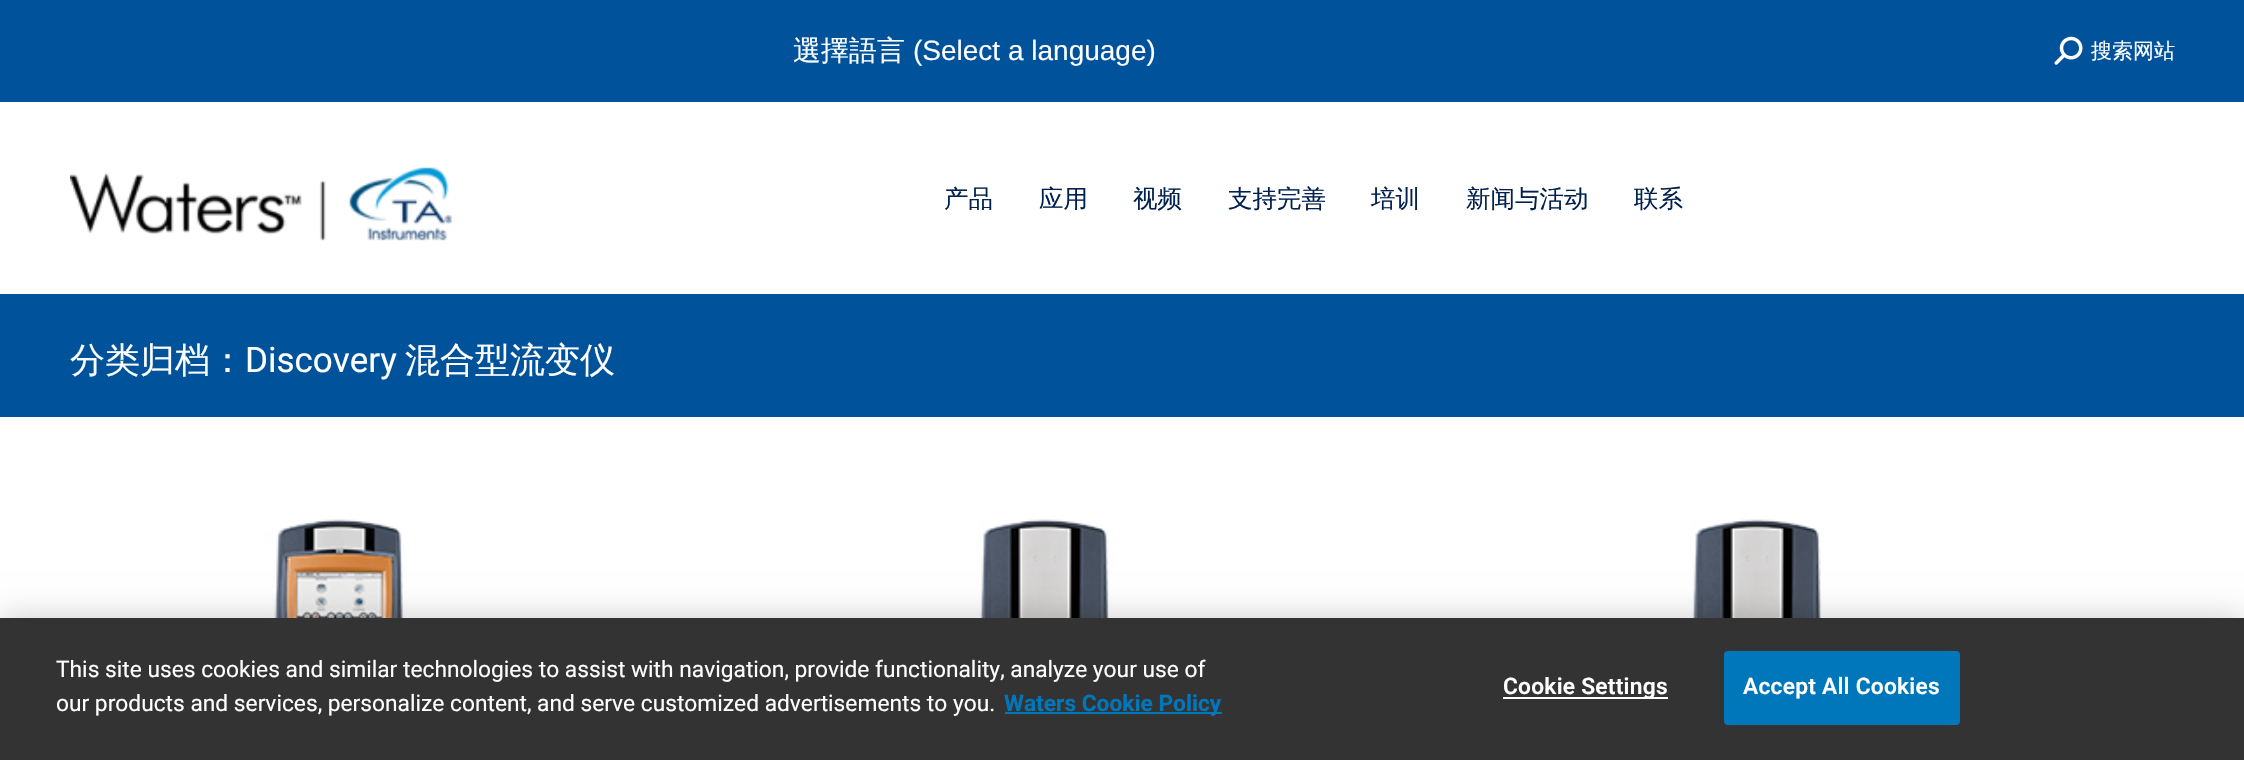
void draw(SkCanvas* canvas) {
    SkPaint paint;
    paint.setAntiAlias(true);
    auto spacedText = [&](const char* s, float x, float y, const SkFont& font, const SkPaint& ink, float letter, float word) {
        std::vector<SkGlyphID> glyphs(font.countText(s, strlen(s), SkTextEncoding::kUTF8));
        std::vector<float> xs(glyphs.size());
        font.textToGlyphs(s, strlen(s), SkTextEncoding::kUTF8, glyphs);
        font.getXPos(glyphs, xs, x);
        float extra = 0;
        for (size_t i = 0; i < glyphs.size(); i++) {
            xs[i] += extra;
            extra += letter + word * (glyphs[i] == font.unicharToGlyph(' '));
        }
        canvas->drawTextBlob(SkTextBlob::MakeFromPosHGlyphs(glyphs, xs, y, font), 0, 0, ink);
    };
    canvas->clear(0xFFFFFFFF);
    paint.setColor(0xFF00529B);
    canvas->drawRect(SkRect::MakeXYWH(0, 0, 2244, 102), paint);
    SkFont font1(fontMgr->matchFamilyStyle("WenQuanYi Zen Hei", SkFontStyle(500, SkFontStyle::kNormal_Width, SkFontStyle::kUpright_Slant)), 28);
    font1.setSubpixel(true);
    paint.setColor(0xFFFFFFFF);
    canvas->drawString("選擇語言", 793, 60, font1, paint);
    SkFont font2(fontMgr->matchFamilyStyle("Liberation Sans", SkFontStyle::Normal()), 28);
    font2.setSubpixel(true);
    canvas->drawString("(Select a language)", 913, 60, font2, paint);
    canvas->drawImageRect(SkImages::DeferredFromEncodedData(SkData::MakeFromFileName("img1.png")), SkRect::MakeXYWH(2054, 36, 29, 29), SkSamplingOptions());
    SkFont font3(fontMgr->matchFamilyStyle("WenQuanYi Zen Hei", SkFontStyle(500, SkFontStyle::kNormal_Width, SkFontStyle::kUpright_Slant)), 21);
    font3.setSubpixel(true);
    canvas->drawString("搜索网站", 2091, 58, font3, paint);
    canvas->drawImageRect(SkImages::DeferredFromEncodedData(SkData::MakeFromFileName("img2.png")), SkRect::MakeXYWH(70, 167, 382, 74), SkSamplingOptions());
    SkFont font4(fontMgr->matchFamilyStyle("WenQuanYi Zen Hei", SkFontStyle(500, SkFontStyle::kNormal_Width, SkFontStyle::kUpright_Slant)), 24.5f);
    font4.setSubpixel(true);
    paint.setColor(0xFF00204E);
    canvas->drawString("产品", 944, 207, font4, paint);
    canvas->drawString("应用", 1039, 207, font4, paint);
    canvas->drawString("视频", 1133, 207, font4, paint);
    canvas->drawString("支持完善", 1228, 207, font4, paint);
    canvas->drawString("培训", 1371, 207, font4, paint);
    canvas->drawString("新闻与活动", 1466, 207, font4, paint);
    canvas->drawString("联系", 1634, 207, font4, paint);
    paint.setColor(0xFF00529B);
    canvas->drawRect(SkRect::MakeXYWH(0, 294, 2244, 123), paint);
    SkFont font5(fontMgr->matchFamilyStyle("WenQuanYi Zen Hei", SkFontStyle(500, SkFontStyle::kNormal_Width, SkFontStyle::kUpright_Slant)), 35);
    font5.setSubpixel(true);
    paint.setColor(0xFFFFFFFF);
    canvas->drawString("分类归档：", 70, 372, font5, paint);
    SkFont font6(fontMgr->matchFamilyStyle("Roboto", SkFontStyle::Normal()), 35);
    font6.setSubpixel(true);
    canvas->drawString("Discovery", 245, 372, font6, paint);
    canvas->drawString("混合型流变仪", 405, 372, font5, paint);
    canvas->drawImageRect(SkImages::DeferredFromEncodedData(SkData::MakeFromFileName("img3.png")), SkRect::MakeXYWH(208, 519, 264, 99), SkSamplingOptions());
    canvas->drawImageRect(SkImages::DeferredFromEncodedData(SkData::MakeFromFileName("img4.png")), SkRect::MakeXYWH(977, 519, 135, 99), SkSamplingOptions());
    canvas->drawImageRect(SkImages::DeferredFromEncodedData(SkData::MakeFromFileName("img5.png")), SkRect::MakeXYWH(1690, 519, 134, 99), SkSamplingOptions());
    paint.setColor(0x33000000);
    paint.setMaskFilter(SkMaskFilter::MakeBlur(kNormal_SkBlurStyle, 16));
    canvas->drawRect(SkRect::MakeXYWH(0, 618, 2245, 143), paint);
    paint.setMaskFilter(nullptr);
    paint.setColor(0xFF333333);
    canvas->drawRect(SkRect::MakeXYWH(0, 618, 2244, 142), paint);
    SkFont font7(fontMgr->matchFamilyStyle("Roboto", SkFontStyle::Normal()), 22.75f);
    font7.setSubpixel(true);
    paint.setColor(0xFFFFFFFF);
    canvas->drawString("This site uses cookies and similar technologies to assist with navigation, provide functionality, analyze your use of", 56, 677, font7, paint);
    canvas->drawString("our products and services, personalize content, and serve customized advertisements to you.", 56, 711, font7, paint);
    paint.setColor(0xFF0077BB);
    canvas->drawRect(SkRect::MakeXYWH(1005, 712, 217, 2), paint);
    SkFont font8(fontMgr->matchFamilyStyle("Roboto", SkFontStyle::Bold()), 22.75f);
    font8.setSubpixel(true);
    canvas->drawString("Waters Cookie Policy", 1004, 711, font8, paint);
    paint.setColor(0xFFFFFFFF);
    canvas->drawRect(SkRect::MakeXYWH(1503, 697, 165, 2), paint);
    SkFont font9(fontMgr->matchFamilyStyle("Roboto", SkFontStyle(600, SkFontStyle::kNormal_Width, SkFontStyle::kUpright_Slant)), 22.75f);
    font9.setSubpixel(true);
    spacedText("Cookie Settings", 1503, 694, font9, paint, 0.25f, 0);
    paint.setColor(0xFF0077BB);
    canvas->drawRoundRect(SkRect::MakeXYWH(1725, 652, 234, 72), 3, 3, paint);
    paint.setStyle(SkPaint::kStroke_Style);
    paint.setStrokeWidth(2);
    canvas->drawRoundRect(SkRect::MakeXYWH(1725, 652, 234, 72), 3, 3, paint);
    paint.setStyle(SkPaint::kFill_Style);
    paint.setColor(0xFFFFFFFF);
    spacedText("Accept All Cookies", 1743, 694, font9, paint, 0.25f, 0);
}
